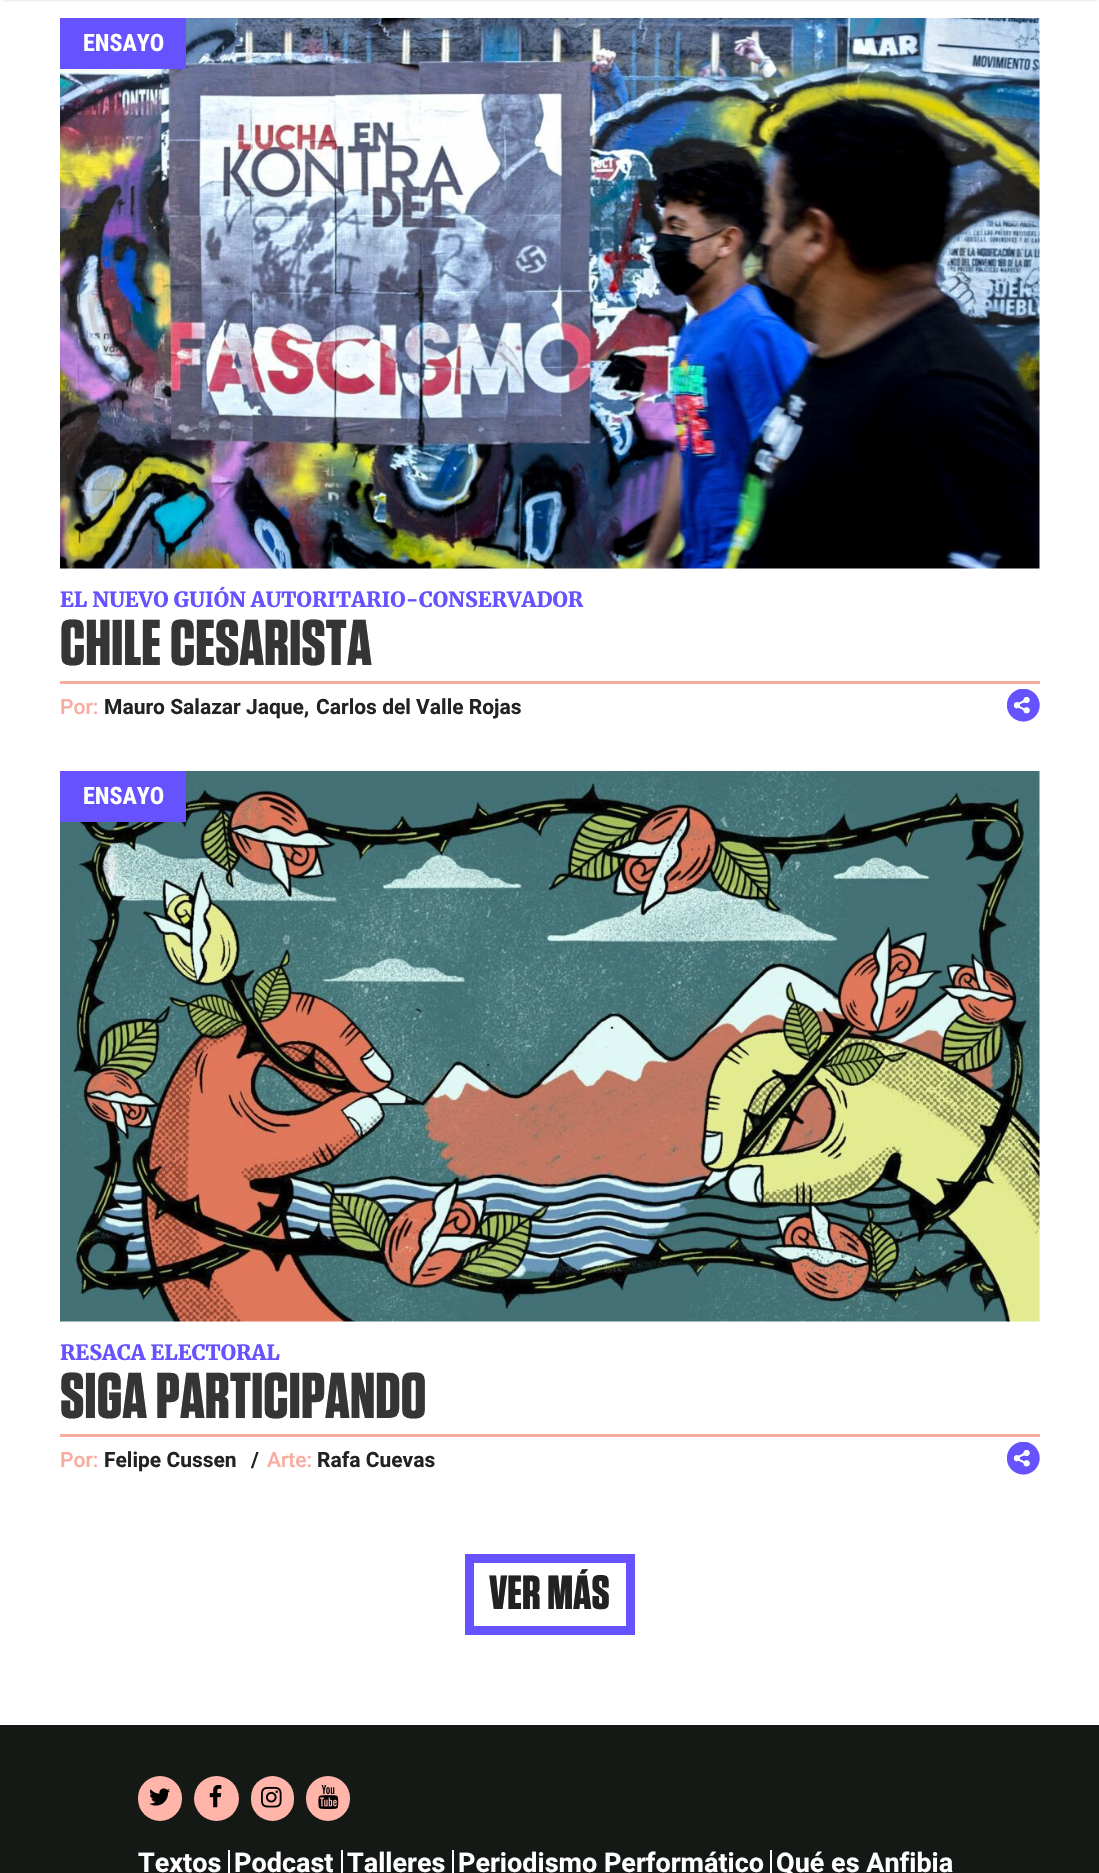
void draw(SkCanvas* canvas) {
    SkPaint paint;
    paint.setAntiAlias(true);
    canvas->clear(0xFFFFFFFF);
    paint.setColor(0x33000000);
    paint.setMaskFilter(SkMaskFilter::MakeBlur(kNormal_SkBlurStyle, 1.5f));
    canvas->drawRect(SkRect::MakeXYWH(3, -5, 1094, 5), paint);
    paint.setMaskFilter(nullptr);
    canvas->drawImageRect(SkImages::DeferredFromEncodedData(SkData::MakeFromFileName("img1.png")), SkRect::MakeXYWH(60, 18, 980, 551), SkSamplingOptions());
    paint.setColor(0xFF6653FF);
    canvas->drawRect(SkRect::MakeXYWH(60, 18, 126, 51), paint);
    SkFont font1(fontMgr->matchFamilyStyle("Roboto Condensed", SkFontStyle::Bold()), 24);
    font1.setSubpixel(true);
    paint.setColor(0xFFFFFFFF);
    canvas->drawString("ENSAYO", 83, 51, font1, paint);
    SkFont font2(fontMgr->matchFamilyStyle("Merriweather", SkFontStyle(900, SkFontStyle::kNormal_Width, SkFontStyle::kUpright_Slant)), 21);
    font2.setSubpixel(true);
    paint.setColor(0xFF6653FF);
    canvas->drawString("EL NUEVO GUIÓN AUTORITARIO-CONSERVADOR", 60, 607, font2, paint);
    paint.setColor(0xFFF8AC9F);
    canvas->drawRect(SkRect::MakeXYWH(60, 681, 980, 3), paint);
    SkFont font3(fontMgr->matchFamilyStyle("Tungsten", SkFontStyle::Bold()), 64.5f);
    font3.setSubpixel(true);
    paint.setColor(0xFF353535);
    canvas->drawString("CHILE CESARISTA", 60, 665, font3, paint);
    SkFont font4(fontMgr->matchFamilyStyle("Roboto", SkFontStyle(500, SkFontStyle::kNormal_Width, SkFontStyle::kUpright_Slant)), 21);
    font4.setSubpixel(true);
    paint.setColor(0xFFF8AC9F);
    canvas->drawString("Por:", 60, 714, font4, paint);
    SkFont font5(fontMgr->matchFamilyStyle("Roboto", SkFontStyle::Bold()), 21);
    font5.setSubpixel(true);
    paint.setColor(0xFF222222);
    canvas->drawString("Mauro Salazar Jaque,", 104, 714, font5, paint);
    canvas->drawString("Carlos del Valle Rojas", 316, 714, font5, paint);
    canvas->drawImageRect(SkImages::DeferredFromEncodedData(SkData::MakeFromFileName("img2.png")), SkRect::MakeXYWH(1007, 689, 33, 33), SkSamplingOptions());
    canvas->drawImageRect(SkImages::DeferredFromEncodedData(SkData::MakeFromFileName("img3.png")), SkRect::MakeXYWH(60, 771, 980, 551), SkSamplingOptions());
    paint.setColor(0xFF6653FF);
    canvas->drawRect(SkRect::MakeXYWH(60, 771, 126, 51), paint);
    paint.setColor(0xFFFFFFFF);
    canvas->drawString("ENSAYO", 83, 804, font1, paint);
    paint.setColor(0xFF6653FF);
    canvas->drawString("RESACA ELECTORAL", 60, 1360, font2, paint);
    paint.setColor(0xFFF8AC9F);
    canvas->drawRect(SkRect::MakeXYWH(60, 1434, 980, 3), paint);
    paint.setColor(0xFF353535);
    canvas->drawString("SIGA PARTICIPANDO", 60, 1418, font3, paint);
    paint.setColor(0xFFF8AC9F);
    canvas->drawString("Por:", 60, 1467, font4, paint);
    paint.setColor(0xFF222222);
    canvas->drawString("Felipe Cussen", 104, 1467, font5, paint);
    canvas->drawString("/", 251, 1467, font5, paint);
    paint.setColor(0xFFF8AC9F);
    canvas->drawString("Arte:", 267, 1467, font4, paint);
    paint.setColor(0xFF222222);
    canvas->drawString("Rafa Cuevas", 317, 1467, font5, paint);
    canvas->drawImageRect(SkImages::DeferredFromEncodedData(SkData::MakeFromFileName("img2.png")), SkRect::MakeXYWH(1007, 1442, 33, 33), SkSamplingOptions());
    paint.setStyle(SkPaint::kStroke_Style);
    paint.setStrokeWidth(9);
    paint.setColor(0xFF6653FF);
    canvas->drawRect(SkRect::MakeXYWH(469.5f, 1558.5f, 161, 72), paint);
    SkFont font6(fontMgr->matchFamilyStyle("Tungsten", SkFontStyle::Bold()), 48);
    font6.setSubpixel(true);
    paint.setStyle(SkPaint::kFill_Style);
    paint.setColor(0xFF222222);
    canvas->drawString("VER MÁS", 489, 1609, font6, paint);
    paint.setColor(0xFF141916);
    canvas->drawRect(SkRect::MakeXYWH(0, 1725, 1099, 148), paint);
    paint.setColor(0xFFFFB5A9);
    canvas->drawRoundRect(SkRect::MakeXYWH(138, 1776, 44, 45), 22, 22, paint);
    canvas->drawImageRect(SkImages::DeferredFromEncodedData(SkData::MakeFromFileName("img4.png")), SkRect::MakeXYWH(149, 1788, 21, 18), SkSamplingOptions());
    canvas->drawCircle(216.5f, 1798.5f, 22.5f, paint);
    canvas->drawImageRect(SkImages::DeferredFromEncodedData(SkData::MakeFromFileName("img5.png")), SkRect::MakeXYWH(209, 1785, 13, 23), SkSamplingOptions());
    canvas->drawRoundRect(SkRect::MakeXYWH(251, 1776, 43, 45), 21.5f, 21.5f, paint);
    canvas->drawImageRect(SkImages::DeferredFromEncodedData(SkData::MakeFromFileName("img6.png")), SkRect::MakeXYWH(261, 1786, 21, 22), SkSamplingOptions());
    canvas->drawRoundRect(SkRect::MakeXYWH(306, 1776, 44, 45), 22, 22, paint);
    canvas->drawImageRect(SkImages::DeferredFromEncodedData(SkData::MakeFromFileName("img7.png")), SkRect::MakeXYWH(318, 1785, 21, 24), SkSamplingOptions());
    SkFont font7(fontMgr->matchFamilyStyle("Roboto", SkFontStyle::Bold()), 27);
    font7.setSubpixel(true);
    paint.setColor(0xFFFFFFFF);
    canvas->drawString("Textos", 138, 1872, font7, paint);
    canvas->drawRect(SkRect::MakeXYWH(228, 1850, 2, 23), paint);
    canvas->drawString("Podcast", 234, 1872, font7, paint);
    canvas->drawRect(SkRect::MakeXYWH(341, 1850, 2, 23), paint);
    canvas->drawString("Talleres", 347, 1872, font7, paint);
    canvas->drawRect(SkRect::MakeXYWH(452, 1850, 2, 23), paint);
    canvas->drawString("Periodismo Performático", 458, 1872, font7, paint);
    canvas->drawRect(SkRect::MakeXYWH(770, 1850, 2, 23), paint);
    canvas->drawString("Qué es Anfibia", 776, 1872, font7, paint);
}
